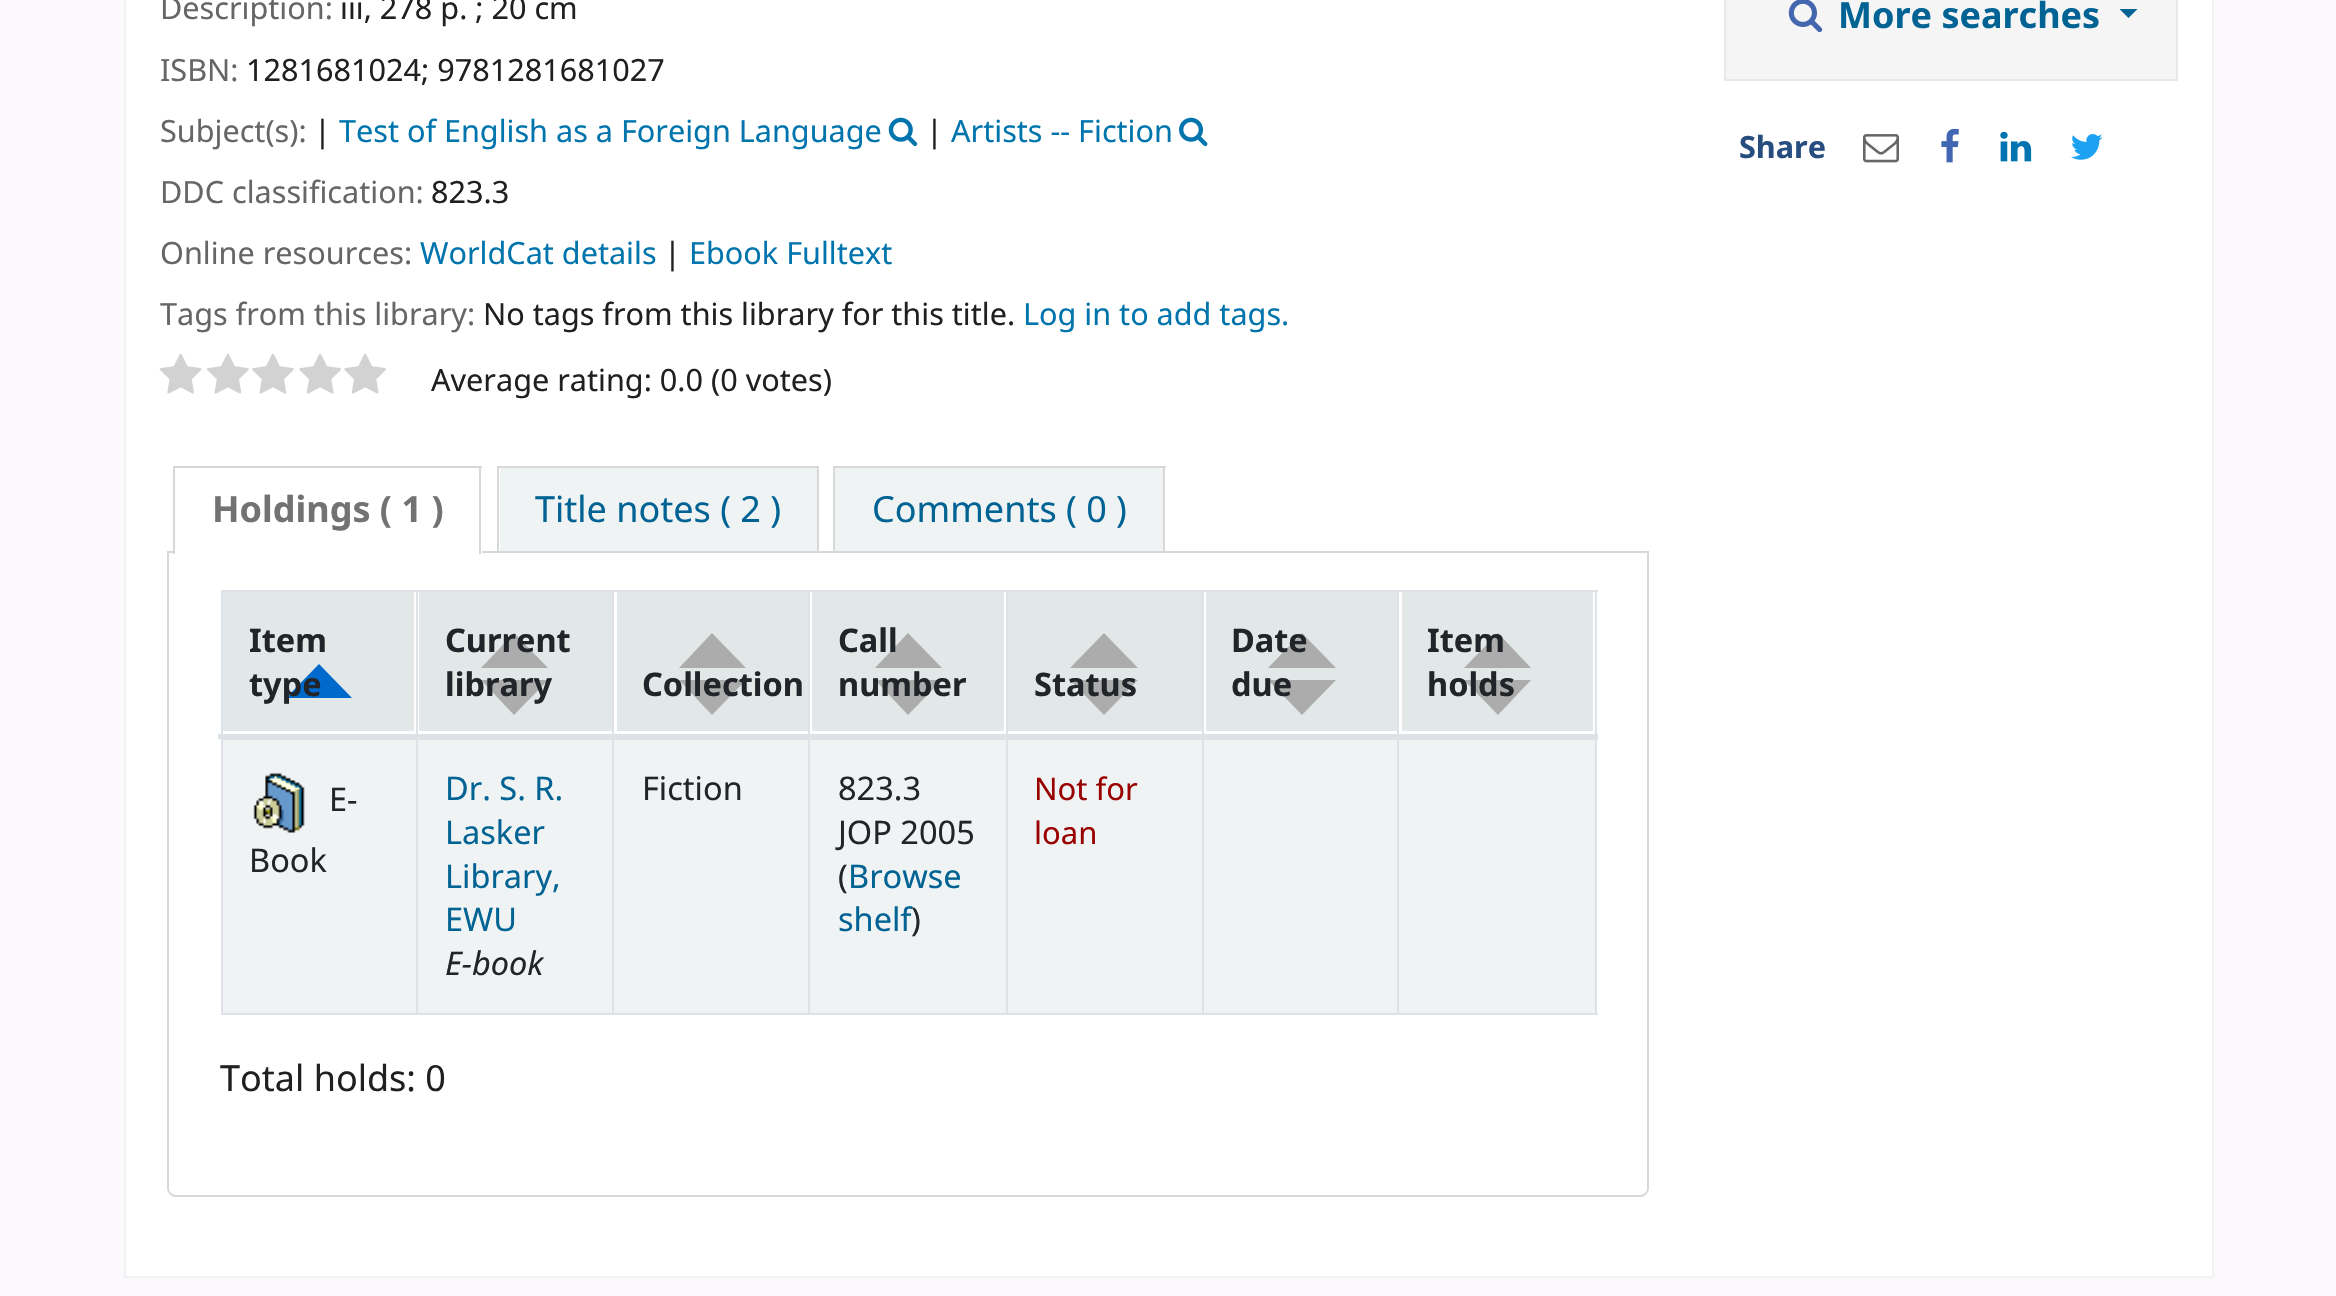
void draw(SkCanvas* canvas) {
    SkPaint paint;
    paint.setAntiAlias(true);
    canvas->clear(0xFFFCF9FC);
    paint.setColor(0xFFFFFFFF);
    canvas->drawRect(SkRect::MakeXYWH(125, -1, 2088, 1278), paint);
    paint.setStyle(SkPaint::kStroke_Style);
    paint.setStrokeWidth(2);
    paint.setColor(0xFFF0F3F3);
    canvas->drawRect(SkRect::MakeXYWH(125, -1, 2088, 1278), paint);
    SkFont font1(fontMgr->matchFamilyStyle("Noto Sans", SkFontStyle::Normal()), 30.6f);
    font1.setSubpixel(true);
    paint.setStyle(SkPaint::kFill_Style);
    paint.setColor(0xFF666666);
    canvas->drawString("Description:", 160, 19, font1, paint);
    paint.setColor(0xFF202020);
    canvas->drawString("iii, 278 p. ; 20 cm", 340, 19, font1, paint);
    paint.setColor(0xFF666666);
    canvas->drawString("ISBN:", 160, 81, font1, paint);
    paint.setColor(0xFF202020);
    canvas->drawString("1281681024; 9781281681027", 246, 81, font1, paint);
    paint.setColor(0xFF666666);
    canvas->drawString("Subject(s):", 160, 142, font1, paint);
    paint.setColor(0xFF202020);
    canvas->drawString("|", 314, 142, font1, paint);
    paint.setColor(0xFF0074AD);
    canvas->drawString("Test of English as a Foreign Language", 339, 142, font1, paint);
    canvas->drawImageRect(SkImages::DeferredFromEncodedData(SkData::MakeFromFileName("img1.png")), SkRect::MakeXYWH(888, 117, 30, 30), SkSamplingOptions());
    paint.setColor(0xFF202020);
    canvas->drawString("|", 926, 142, font1, paint);
    paint.setColor(0xFF0074AD);
    canvas->drawString("Artists -- Fiction", 951, 142, font1, paint);
    canvas->drawImageRect(SkImages::DeferredFromEncodedData(SkData::MakeFromFileName("img2.png")), SkRect::MakeXYWH(1179, 117, 29, 30), SkSamplingOptions());
    paint.setColor(0xFF666666);
    canvas->drawString("DDC classification:", 160, 203, font1, paint);
    paint.setColor(0xFF202020);
    canvas->drawString("823.3", 431, 203, font1, paint);
    paint.setColor(0xFF666666);
    canvas->drawString("Online resources:", 160, 264, font1, paint);
    paint.setColor(0xFF0074AD);
    canvas->drawString("WorldCat details", 420, 264, font1, paint);
    paint.setColor(0xFF202020);
    canvas->drawString("|", 664, 264, font1, paint);
    paint.setColor(0xFF0074AD);
    canvas->drawString("Ebook Fulltext", 689, 264, font1, paint);
    paint.setColor(0xFF666666);
    canvas->drawString("Tags from this library:", 160, 325, font1, paint);
    paint.setColor(0xFF202020);
    canvas->drawString("No tags from this library for this title.", 483, 325, font1, paint);
    paint.setColor(0xFF0074AD);
    canvas->drawString("Log in to add tags.", 1023, 325, font1, paint);
    canvas->drawImageRect(SkImages::DeferredFromEncodedData(SkData::MakeFromFileName("img3.png")), SkRect::MakeXYWH(159, 353, 43, 41), SkSamplingOptions());
    canvas->drawImageRect(SkImages::DeferredFromEncodedData(SkData::MakeFromFileName("img4.png")), SkRect::MakeXYWH(207, 353, 42, 41), SkSamplingOptions());
    canvas->drawImageRect(SkImages::DeferredFromEncodedData(SkData::MakeFromFileName("img4.png")), SkRect::MakeXYWH(252, 353, 42, 41), SkSamplingOptions());
    canvas->drawImageRect(SkImages::DeferredFromEncodedData(SkData::MakeFromFileName("img5.png")), SkRect::MakeXYWH(299, 353, 42, 41), SkSamplingOptions());
    canvas->drawImageRect(SkImages::DeferredFromEncodedData(SkData::MakeFromFileName("img5.png")), SkRect::MakeXYWH(344, 353, 42, 41), SkSamplingOptions());
    paint.setColor(0xFF202020);
    canvas->drawString("Average rating: 0.0 (0 votes)", 431, 391, font1, paint);
    paint.setStyle(SkPaint::kStroke_Style);
    paint.setColor(0xFFD8D8D8);
    canvas->drawPath(SkPathBuilder().moveTo(168, 552).lineTo(1648, 552).lineTo(1648, 1188).cubicTo(1648, 1192.5f, 1644.5f, 1196, 1640, 1196).lineTo(176, 1196).cubicTo(171.5f, 1196, 168, 1192.5f, 168, 1188).close().detach(), paint);
    paint.setStyle(SkPaint::kFill_Style);
    paint.setColor(0xFFFFFFFF);
    canvas->drawRect(SkRect::MakeXYWH(175, 551, 307, 2), paint);
    paint.setColor(0xFFD8D8D8);
    canvas->drawRect(SkRect::MakeXYWH(173, 466, 309, 2), paint);
    canvas->drawRect(SkRect::MakeXYWH(479, 466, 2, 88), paint);
    canvas->drawRect(SkRect::MakeXYWH(173, 466, 2, 88), paint);
    SkFont font2(fontMgr->matchFamilyStyle("Noto Sans", SkFontStyle::Bold()), 36);
    font2.setSubpixel(true);
    paint.setColor(0xFF727272);
    canvas->drawString("Holdings ( 1 )", 212, 522, font2, paint);
    paint.setColor(0xFFF0F3F3);
    canvas->drawRect(SkRect::MakeXYWH(500, 468, 317, 83), paint);
    paint.setColor(0xFFD8D8D8);
    canvas->drawRect(SkRect::MakeXYWH(497, 466, 322, 2), paint);
    canvas->drawRect(SkRect::MakeXYWH(817, 466, 2, 85), paint);
    canvas->drawRect(SkRect::MakeXYWH(497, 466, 2, 85), paint);
    SkFont font3(fontMgr->matchFamilyStyle("Noto Sans", SkFontStyle::Normal()), 36);
    font3.setSubpixel(true);
    paint.setColor(0xFF006394);
    canvas->drawString("Title notes ( 2 )", 535, 522, font3, paint);
    paint.setColor(0xFFF0F3F3);
    canvas->drawRect(SkRect::MakeXYWH(835, 468, 328, 83), paint);
    paint.setColor(0xFFD8D8D8);
    canvas->drawRect(SkRect::MakeXYWH(833, 466, 333, 2), paint);
    canvas->drawRect(SkRect::MakeXYWH(1163, 466, 2, 85), paint);
    canvas->drawRect(SkRect::MakeXYWH(833, 466, 2, 85), paint);
    paint.setColor(0xFF006394);
    canvas->drawString("Comments ( 0 )", 872, 522, font3, paint);
    paint.setColor(0xFFDEE2E6);
    canvas->drawRect(SkRect::MakeXYWH(221, 590, 1377, 2), paint);
    canvas->drawRect(SkRect::MakeXYWH(1595, 590, 2, 425), paint);
    canvas->drawRect(SkRect::MakeXYWH(221, 1013, 1377, 2), paint);
    canvas->drawRect(SkRect::MakeXYWH(221, 590, 2, 425), paint);
    paint.setColor(0xFFE2E8E8);
    canvas->drawRect(SkRect::MakeXYWH(223, 592, 191, 139), paint);
    paint.setColor(0xFF006ACC);
    canvas->drawPath(SkPathBuilder().moveTo(352, 698).lineTo(286, 698).lineTo(319, 664).close().detach(), paint);
    SkFont font4(fontMgr->matchFamilyStyle("Noto Sans", SkFontStyle::Bold()), 32.5f);
    font4.setSubpixel(true);
    paint.setColor(0xFF212529);
    canvas->drawString("Item", 249, 652, font4, paint);
    canvas->drawString("type", 249, 696, font4, paint);
    paint.setColor(0xFFE2E8E8);
    canvas->drawRect(SkRect::MakeXYWH(419, 592, 193, 139), paint);
    paint.setColor(0xFFACACAC);
    canvas->drawPath(SkPathBuilder().moveTo(548, 680).lineTo(481, 680).lineTo(514, 715).close().detach(), paint);
    canvas->drawPath(SkPathBuilder().moveTo(548, 668).lineTo(481, 668).lineTo(514, 633).close().detach(), paint);
    paint.setColor(0xFFDEE2E6);
    canvas->drawRect(SkRect::MakeXYWH(416, 590, 2, 146), paint);
    paint.setColor(0xFF212529);
    canvas->drawString("Current", 445, 652, font4, paint);
    canvas->drawString("library", 445, 696, font4, paint);
    paint.setColor(0xFFE2E8E8);
    canvas->drawRect(SkRect::MakeXYWH(617, 592, 191, 139), paint);
    paint.setColor(0xFFACACAC);
    canvas->drawPath(SkPathBuilder().moveTo(746, 680).lineTo(679, 680).lineTo(712, 715).close().detach(), paint);
    canvas->drawPath(SkPathBuilder().moveTo(746, 668).lineTo(679, 668).lineTo(712, 633).close().detach(), paint);
    paint.setColor(0xFFDEE2E6);
    canvas->drawRect(SkRect::MakeXYWH(612, 590, 2, 146), paint);
    paint.setColor(0xFF212529);
    canvas->drawString("Collection", 642, 696, font4, paint);
    paint.setColor(0xFFE2E8E8);
    canvas->drawRect(SkRect::MakeXYWH(812, 592, 192, 139), paint);
    paint.setColor(0xFFACACAC);
    canvas->drawPath(SkPathBuilder().moveTo(942, 680).lineTo(875, 680).lineTo(908, 715).close().detach(), paint);
    canvas->drawPath(SkPathBuilder().moveTo(942, 668).lineTo(875, 668).lineTo(908, 633).close().detach(), paint);
    paint.setColor(0xFFDEE2E6);
    canvas->drawRect(SkRect::MakeXYWH(808, 590, 2, 146), paint);
    paint.setColor(0xFF212529);
    canvas->drawString("Call", 838, 652, font4, paint);
    canvas->drawString("number", 838, 696, font4, paint);
    paint.setColor(0xFFE2E8E8);
    canvas->drawRect(SkRect::MakeXYWH(1008, 592, 194, 139), paint);
    paint.setColor(0xFFACACAC);
    canvas->drawPath(SkPathBuilder().moveTo(1138, 680).lineTo(1070, 680).lineTo(1104, 715).close().detach(), paint);
    canvas->drawPath(SkPathBuilder().moveTo(1138, 668).lineTo(1070, 668).lineTo(1104, 633).close().detach(), paint);
    paint.setColor(0xFFDEE2E6);
    canvas->drawRect(SkRect::MakeXYWH(1006, 590, 2, 146), paint);
    paint.setColor(0xFF212529);
    canvas->drawString("Status", 1034, 696, font4, paint);
    paint.setColor(0xFFE2E8E8);
    canvas->drawRect(SkRect::MakeXYWH(1206, 592, 191, 139), paint);
    paint.setColor(0xFFACACAC);
    canvas->drawPath(SkPathBuilder().moveTo(1336, 680).lineTo(1268, 680).lineTo(1302, 715).close().detach(), paint);
    canvas->drawPath(SkPathBuilder().moveTo(1336, 668).lineTo(1268, 668).lineTo(1302, 633).close().detach(), paint);
    paint.setColor(0xFFDEE2E6);
    canvas->drawRect(SkRect::MakeXYWH(1202, 590, 2, 146), paint);
    paint.setColor(0xFF212529);
    canvas->drawString("Date", 1231, 652, font4, paint);
    canvas->drawString("due", 1231, 696, font4, paint);
    paint.setColor(0xFFE2E8E8);
    canvas->drawRect(SkRect::MakeXYWH(1402, 592, 191, 139), paint);
    paint.setColor(0xFFACACAC);
    canvas->drawPath(SkPathBuilder().moveTo(1531, 680).lineTo(1464, 680).lineTo(1498, 715).close().detach(), paint);
    canvas->drawPath(SkPathBuilder().moveTo(1531, 668).lineTo(1464, 668).lineTo(1498, 633).close().detach(), paint);
    paint.setColor(0xFFDEE2E6);
    canvas->drawRect(SkRect::MakeXYWH(1397, 590, 2, 146), paint);
    canvas->drawRect(SkRect::MakeXYWH(1397, 739, 201, 1), paint);
    paint.setColor(0xFFF0F3F3);
    canvas->drawRect(SkRect::MakeXYWH(1204, 740, 391, 273), paint);
    paint.setColor(0xFFDEE2E6);
    canvas->drawRect(SkRect::MakeXYWH(1397, 738, 2, 277), paint);
    canvas->drawRect(SkRect::MakeXYWH(1202, 739, 198, 1), paint);
    canvas->drawRect(SkRect::MakeXYWH(1202, 738, 2, 277), paint);
    canvas->drawRect(SkRect::MakeXYWH(1006, 739, 198, 1), paint);
    canvas->drawRect(SkRect::MakeXYWH(1006, 738, 2, 277), paint);
    canvas->drawRect(SkRect::MakeXYWH(808, 739, 200, 1), paint);
    canvas->drawRect(SkRect::MakeXYWH(808, 738, 2, 277), paint);
    canvas->drawRect(SkRect::MakeXYWH(612, 739, 198, 1), paint);
    canvas->drawRect(SkRect::MakeXYWH(612, 738, 2, 277), paint);
    canvas->drawRect(SkRect::MakeXYWH(416, 739, 198, 1), paint);
    canvas->drawRect(SkRect::MakeXYWH(416, 738, 2, 277), paint);
    canvas->drawRect(SkRect::MakeXYWH(218, 734, 1380, 5), paint);
    paint.setColor(0xFF212529);
    canvas->drawString("Item", 1427, 652, font4, paint);
    canvas->drawString("holds", 1427, 696, font4, paint);
    paint.setColor(0xFFF0F3F3);
    canvas->drawRect(SkRect::MakeXYWH(223, 740, 193, 273), paint);
    paint.setColor(0xFFDEE2E6);
    canvas->drawRect(SkRect::MakeXYWH(221, 739, 198, 1), paint);
    canvas->drawImageRect(SkImages::DeferredFromEncodedData(SkData::MakeFromFileName("img6.png")), SkRect::MakeXYWH(253, 773, 52, 60), SkSamplingOptions());
    SkFont font5(fontMgr->matchFamilyStyle("Noto Sans", SkFontStyle::Normal()), 32.5f);
    font5.setSubpixel(true);
    paint.setColor(0xFF212529);
    canvas->drawString("E-", 329, 811, font5, paint);
    canvas->drawString("Book", 249, 872, font5, paint);
    paint.setColor(0xFFF0F3F3);
    canvas->drawRect(SkRect::MakeXYWH(418, 740, 194, 273), paint);
    paint.setColor(0xFF006394);
    canvas->drawString("Dr. S. R.", 445, 800, font5, paint);
    canvas->drawString("Lasker", 445, 844, font5, paint);
    canvas->drawString("Library,", 445, 888, font5, paint);
    canvas->drawString("EWU", 445, 931, font5, paint);
    SkFont font6(fontMgr->matchFamilyStyle("Noto Sans", SkFontStyle::Italic()), 32.5f);
    font6.setSubpixel(true);
    paint.setColor(0xFF212529);
    canvas->drawString("E-book", 445, 975, font6, paint);
    paint.setColor(0xFFF0F3F3);
    canvas->drawRect(SkRect::MakeXYWH(614, 740, 194, 273), paint);
    paint.setColor(0xFF212529);
    canvas->drawString("Fiction", 642, 800, font5, paint);
    paint.setColor(0xFFF0F3F3);
    canvas->drawRect(SkRect::MakeXYWH(810, 740, 196, 273), paint);
    paint.setColor(0xFF212529);
    canvas->drawString("823.3", 838, 800, font5, paint);
    canvas->drawString("JOP 2005", 838, 844, font5, paint);
    canvas->drawString("(", 838, 888, font5, paint);
    paint.setColor(0xFF006394);
    canvas->drawString("Browse", 848, 888, font5, paint);
    canvas->drawString("shelf", 838, 931, font5, paint);
    paint.setColor(0xFF212529);
    canvas->drawString(")", 911, 931, font5, paint);
    paint.setColor(0xFFF0F3F3);
    canvas->drawRect(SkRect::MakeXYWH(1008, 740, 194, 273), paint);
    SkFont font7(fontMgr->matchFamilyStyle("Noto Sans", SkFontStyle::Normal()), 31);
    font7.setSubpixel(true);
    paint.setColor(0xFF990000);
    canvas->drawString("Not for", 1034, 800, font7, paint);
    canvas->drawString("loan", 1034, 844, font7, paint);
    paint.setColor(0xFF202020);
    canvas->drawString("Total holds: 0", 220, 1091, font3, paint);
    paint.setColor(0xFFF5F5F5);
    canvas->drawRect(SkRect::MakeXYWH(1725, -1, 452, 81), paint);
    paint.setStyle(SkPaint::kStroke_Style);
    paint.setColor(0xFFE8E8E8);
    canvas->drawRect(SkRect::MakeXYWH(1725, -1, 452, 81), paint);
    canvas->drawImageRect(SkImages::DeferredFromEncodedData(SkData::MakeFromFileName("img7.png")), SkRect::MakeXYWH(1788, 0, 35, 33), SkSamplingOptions());
    paint.setStyle(SkPaint::kFill_Style);
    paint.setColor(0xFF006394);
    canvas->drawString("More searches", 1838, 28, font2, paint);
    canvas->drawPath(SkPathBuilder().moveTo(2119.5f, 9).lineTo(2137.5f, 9).lineTo(2128.5f, 18).close().detach(), paint);
    SkFont font8(fontMgr->matchFamilyStyle("Noto Sans", SkFontStyle::Bold()), 30.6f);
    font8.setSubpixel(true);
    paint.setColor(0xFF274D7F);
    canvas->drawString("Share", 1739, 158, font8, paint);
    canvas->drawImageRect(SkImages::DeferredFromEncodedData(SkData::MakeFromFileName("img8.png")), SkRect::MakeXYWH(1863, 134, 36, 29), SkSamplingOptions());
    canvas->drawImageRect(SkImages::DeferredFromEncodedData(SkData::MakeFromFileName("img9.png")), SkRect::MakeXYWH(1941, 128, 18, 35), SkSamplingOptions());
    canvas->drawImageRect(SkImages::DeferredFromEncodedData(SkData::MakeFromFileName("img10.png")), SkRect::MakeXYWH(2000, 131, 32, 31), SkSamplingOptions());
    canvas->drawImageRect(SkImages::DeferredFromEncodedData(SkData::MakeFromFileName("img11.png")), SkRect::MakeXYWH(2071, 134, 32, 26), SkSamplingOptions());
}
